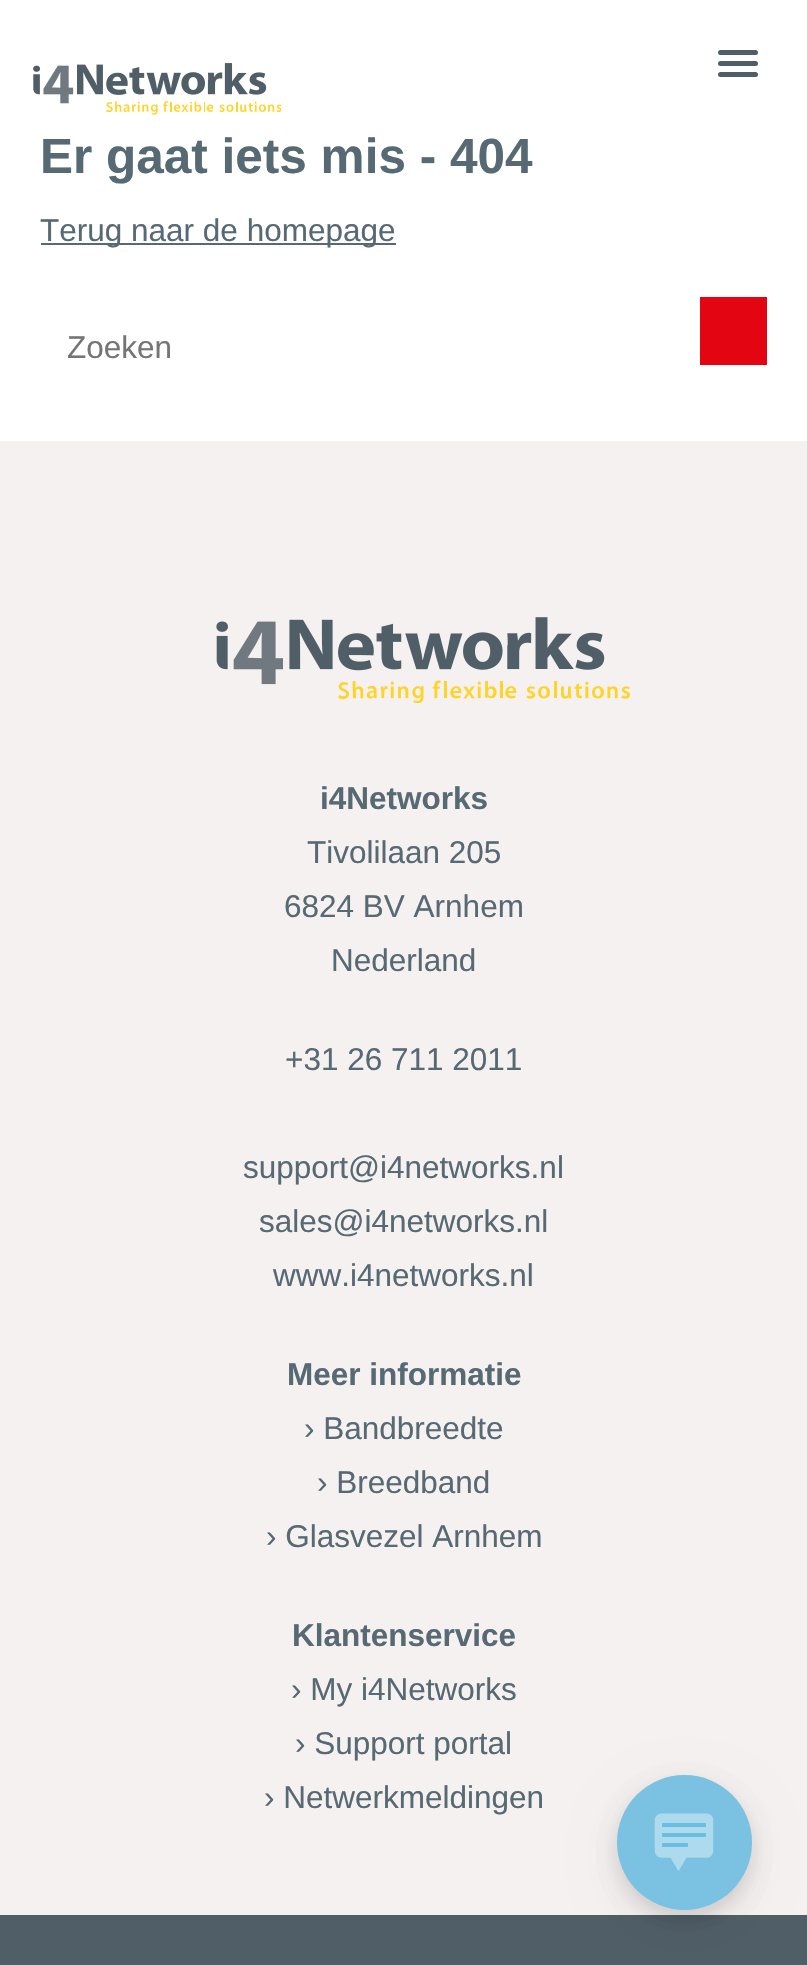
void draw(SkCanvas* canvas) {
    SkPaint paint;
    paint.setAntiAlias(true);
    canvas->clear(0xFFFFFFFF);
    canvas->drawImageRect(SkImages::DeferredFromEncodedData(SkData::MakeFromFileName("img1.png")), SkRect::MakeXYWH(33, 63, 248, 52), SkSamplingOptions());
    paint.setColor(0xFF505E67);
    canvas->drawRoundRect(SkRect::MakeXYWH(718, 50, 40, 5), 2.5f, 2.5f, paint);
    canvas->drawRoundRect(SkRect::MakeXYWH(718, 61, 40, 5), 2.5f, 2.5f, paint);
    canvas->drawRoundRect(SkRect::MakeXYWH(718, 72, 40, 5), 2.5f, 2.5f, paint);
    SkFont font1(fontMgr->matchFamilyStyle("Liberation Sans", SkFontStyle::Bold()), 49.5f);
    font1.setSubpixel(true);
    paint.setColor(0xFF576973);
    canvas->drawString("Er gaat iets mis - 404", 40, 173, font1, paint);
    canvas->drawRect(SkRect::MakeXYWH(41, 243, 355, 2), paint);
    SkFont font2(fontMgr->matchFamilyStyle("Liberation Sans", SkFontStyle::Normal()), 31.5f);
    font2.setSubpixel(true);
    canvas->drawString("Terug naar de homepage", 40, 241, font2, paint);
    paint.setColor(0xFF757575);
    canvas->drawString("Zoeken", 67, 358, font2, paint);
    paint.setColor(0xFFE30612);
    canvas->drawRect(SkRect::MakeXYWH(700, 297, 67, 68), paint);
    paint.setColor(0xFFF5F1F1);
    canvas->drawRect(SkRect::MakeXYWH(0, 441, 807, 1474), paint);
    canvas->drawImageRect(SkImages::DeferredFromEncodedData(SkData::MakeFromFileName("img2.png")), SkRect::MakeXYWH(216, 617, 414, 86), SkSamplingOptions());
    SkFont font3(fontMgr->matchFamilyStyle("Liberation Sans", SkFontStyle::Bold()), 31.5f);
    font3.setSubpixel(true);
    paint.setColor(0xFF576973);
    canvas->drawString("i4Networks", 320, 809, font3, paint);
    canvas->drawString("Tivolilaan 205", 307, 863, font2, paint);
    canvas->drawString("6824 BV Arnhem", 284, 917, font2, paint);
    canvas->drawString("Nederland", 331, 971, font2, paint);
    canvas->drawString("+31 26 711 2011", 285, 1070, font2, paint);
    canvas->drawString("support@i4networks.nl", 243, 1178, font2, paint);
    canvas->drawString("sales@i4networks.nl", 259, 1232, font2, paint);
    canvas->drawString("www.i4networks.nl", 273, 1286, font2, paint);
    canvas->drawString("Meer informatie", 287, 1385, font3, paint);
    canvas->drawString("› Bandbreedte", 304, 1439, font2, paint);
    canvas->drawString("› Breedband", 317, 1493, font2, paint);
    canvas->drawString("› Glasvezel Arnhem", 266, 1547, font2, paint);
    canvas->drawString("Klantenservice", 292, 1646, font3, paint);
    canvas->drawString("› My i4Networks", 291, 1700, font2, paint);
    canvas->drawString("› Support portal", 295, 1754, font2, paint);
    canvas->drawString("› Netwerkmeldingen", 264, 1808, font2, paint);
    paint.setColor(0xFF505E67);
    canvas->drawRect(SkRect::MakeXYWH(0, 1915, 807, 50), paint);
    paint.setColor(0x0F000000);
    paint.setMaskFilter(SkMaskFilter::MakeBlur(kNormal_SkBlurStyle, 22.5f));
    canvas->drawRoundRect(SkRect::MakeXYWH(617, 1789, 135, 135), 67.5f, 67.5f, paint);
    paint.setMaskFilter(nullptr);
    paint.setMaskFilter(SkMaskFilter::MakeBlur(kNormal_SkBlurStyle, 9));
    canvas->drawRoundRect(SkRect::MakeXYWH(617, 1784, 135, 135), 67.5f, 67.5f, paint);
    paint.setMaskFilter(nullptr);
    paint.setColor(0xFFADD6E8);
    canvas->drawCircle(684.5f, 1842.5f, 67.5f, paint);
    canvas->drawImageRect(SkImages::DeferredFromEncodedData(SkData::MakeFromFileName("img3.png")), SkRect::MakeXYWH(654, 1813, 60, 58), SkSamplingOptions());
    canvas->save();
    canvas->clipPath(SkPathBuilder(SkPathFillType::kEvenOdd).moveTo(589, 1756).lineTo(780, 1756).lineTo(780, 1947).lineTo(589, 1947).close().moveTo(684.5f, 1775).cubicTo(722, 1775, 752, 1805, 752, 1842.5f).cubicTo(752, 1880, 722, 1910, 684.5f, 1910).cubicTo(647, 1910, 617, 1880, 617, 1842.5f).cubicTo(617, 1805, 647, 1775, 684.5f, 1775).close().detach(), true);
    paint.setColor(0x0F000000);
    paint.setMaskFilter(SkMaskFilter::MakeBlur(kNormal_SkBlurStyle, 9));
    canvas->drawRoundRect(SkRect::MakeXYWH(617, 1784, 135, 135), 67.5f, 67.5f, paint);
    paint.setMaskFilter(nullptr);
    canvas->restore();
    paint.setColor(0x4D0596D4);
    canvas->drawCircle(684.5f, 1842.5f, 67.5f, paint);
    canvas->drawImageRect(SkImages::DeferredFromEncodedData(SkData::MakeFromFileName("img4.png")), SkRect::MakeXYWH(654, 1813, 60, 58), SkSamplingOptions());
}
